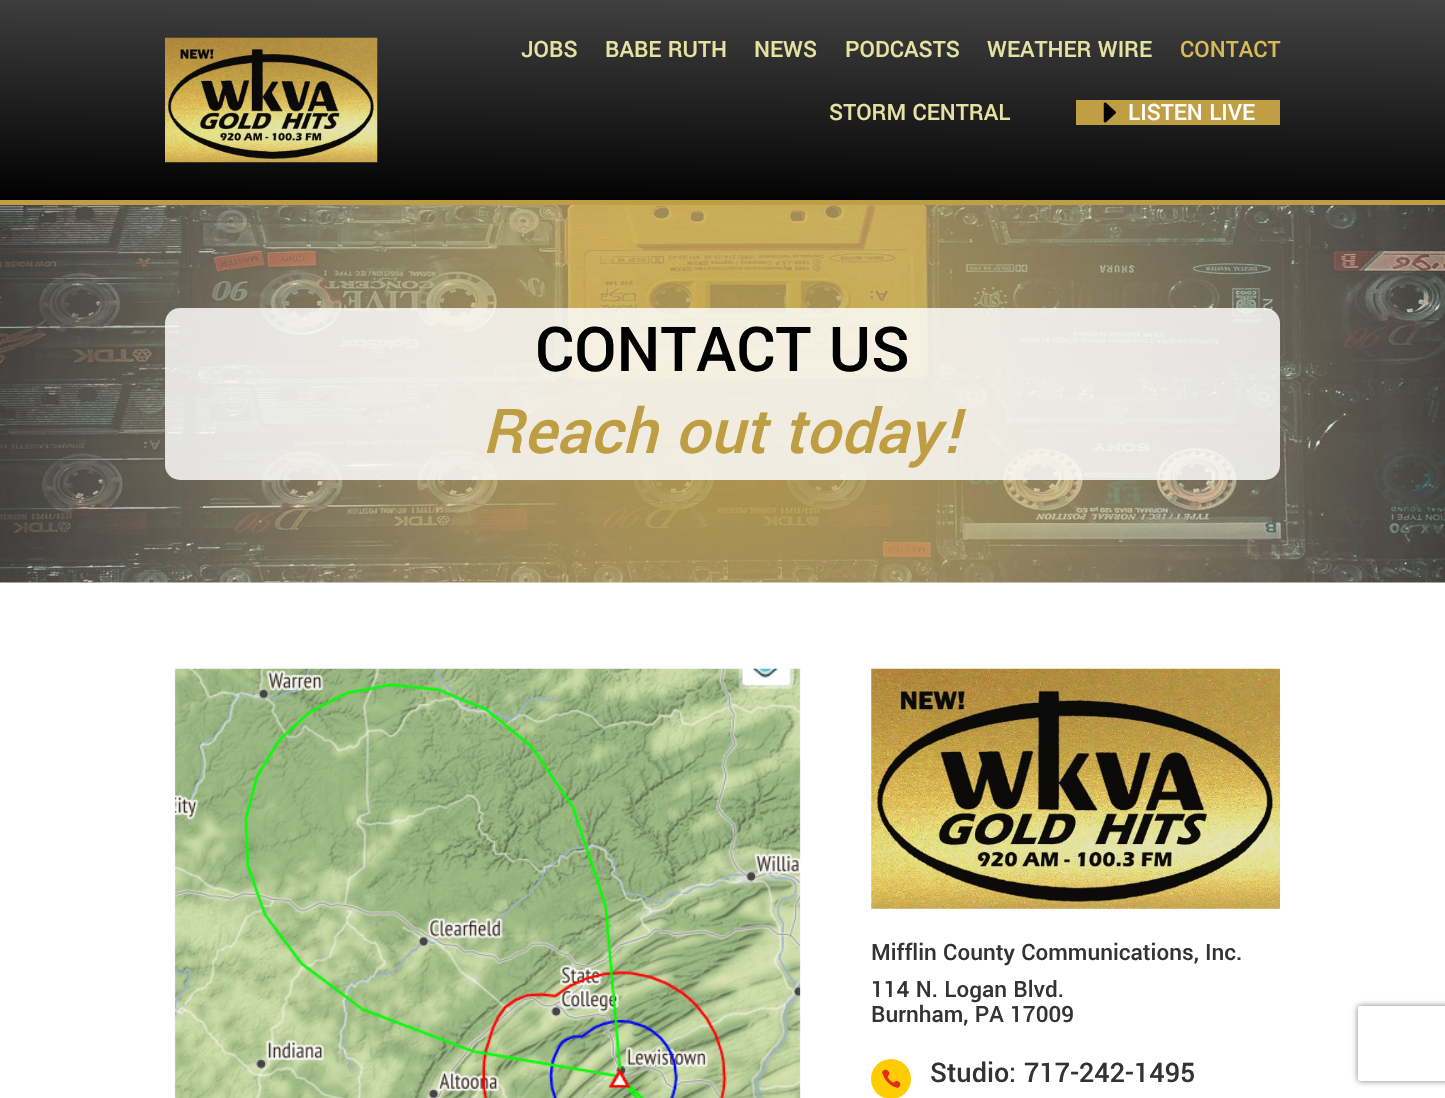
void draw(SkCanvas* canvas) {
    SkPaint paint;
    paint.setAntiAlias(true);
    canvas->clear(0xFFFFFFFF);
    {
        const SkColor colors[] = {0xFF000000, 0xFF444444};
        const float stops[] = {0, 1};
        const SkPoint ends[] = {{721, 213}, {724, -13}};
        paint.setShader(SkGradientShader::MakeLinear(ends, colors, stops, 2, SkTileMode::kClamp));
        paint.setAlpha(255);
    }
    canvas->drawRect(SkRect::MakeXYWH(0, 0, 1445, 200), paint);
    paint.setShader(nullptr);
    paint.setColor(0xFFC09E43);
    canvas->drawRect(SkRect::MakeXYWH(0, 200, 1445, 5), paint);
    canvas->drawImageRect(SkImages::DeferredFromEncodedData(SkData::MakeFromFileName("img1.png")), SkRect::MakeXYWH(165, 37, 213, 126), SkSamplingOptions());
    SkFont font1(fontMgr->matchFamilyStyle("Yantramanav", SkFontStyle(500, SkFontStyle::kNormal_Width, SkFontStyle::kUpright_Slant)), 25);
    font1.setSubpixel(true);
    paint.setColor(0xFFE4E3A1);
    canvas->drawString("JOBS", 521, 57, font1, paint);
    canvas->drawString("BABE RUTH", 605, 57, font1, paint);
    canvas->drawString("NEWS", 754, 57, font1, paint);
    canvas->drawString("PODCASTS", 845, 57, font1, paint);
    canvas->drawString("WEATHER WIRE", 987, 57, font1, paint);
    paint.setColor(0xFFD8BB57);
    canvas->drawString("CONTACT", 1180, 57, font1, paint);
    paint.setColor(0xFFE4E3A1);
    canvas->drawString("STORM CENTRAL", 829, 120, font1, paint);
    paint.setColor(0xFFC09E43);
    canvas->drawRect(SkRect::MakeXYWH(1076, 100, 204, 25), paint);
    canvas->drawImageRect(SkImages::DeferredFromEncodedData(SkData::MakeFromFileName("img2.png")), SkRect::MakeXYWH(1103, 102, 14, 21), SkSamplingOptions());
    paint.setColor(0xFFFFFFFF);
    canvas->drawString("LISTEN LIVE", 1128, 120, font1, paint);
    canvas->drawImageRect(SkImages::DeferredFromEncodedData(SkData::MakeFromFileName("img3.png")), SkRect::MakeXYWH(0, 205, 1445, 378), SkSamplingOptions());
    paint.setColor(0xD1FFFFFF);
    canvas->drawRoundRect(SkRect::MakeXYWH(165, 308, 1115, 172), 15, 15, paint);
    SkFont font2(fontMgr->matchFamilyStyle("Yantramanav", SkFontStyle(500, SkFontStyle::kNormal_Width, SkFontStyle::kUpright_Slant)), 68.75f);
    font2.setSubpixel(true);
    paint.setColor(0xFF000000);
    canvas->drawString("CONTACT US", 535, 371, font2, paint);
    SkFont font3(fontMgr->matchFamilyStyle("Yantramanav", SkFontStyle(500, SkFontStyle::kNormal_Width, SkFontStyle::kItalic_Slant)), 68.75f);
    font3.setSubpixel(true);
    paint.setColor(0xFFBE9D43);
    canvas->drawString("Reach out today!", 482, 453, font3, paint);
    canvas->drawImageRect(SkImages::DeferredFromEncodedData(SkData::MakeFromFileName("img4.png")), SkRect::MakeXYWH(174, 668, 627, 430), SkSamplingOptions());
    canvas->drawImageRect(SkImages::DeferredFromEncodedData(SkData::MakeFromFileName("img5.png")), SkRect::MakeXYWH(871, 668, 409, 241), SkSamplingOptions());
    paint.setColor(0xFF333333);
    canvas->drawString("Mifflin County Communications, Inc.", 871, 960, font1, paint);
    canvas->drawString("114 N. Logan Blvd.", 871, 997, font1, paint);
    canvas->drawString("Burnham, PA 17009", 871, 1022, font1, paint);
    paint.setColor(0xFFFFCC00);
    canvas->drawCircle(891, 1079, 20, paint);
    canvas->drawImageRect(SkImages::DeferredFromEncodedData(SkData::MakeFromFileName("img6.png")), SkRect::MakeXYWH(882, 1069, 19, 19), SkSamplingOptions());
    SkFont font4(fontMgr->matchFamilyStyle("Yantramanav", SkFontStyle(500, SkFontStyle::kNormal_Width, SkFontStyle::kUpright_Slant)), 30);
    font4.setSubpixel(true);
    paint.setColor(0xFF333333);
    canvas->drawString("Studio: 717-242-1495", 930, 1082, font4, paint);
    canvas->save();
    canvas->clipPath(SkPathBuilder(SkPathFillType::kEvenOdd).moveTo(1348, 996).lineTo(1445, 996).lineTo(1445, 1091).lineTo(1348, 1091).close().moveTo(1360.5f, 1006).lineTo(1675.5f, 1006).cubicTo(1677, 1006, 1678, 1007, 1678, 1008.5f).lineTo(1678, 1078.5f).cubicTo(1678, 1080, 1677, 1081, 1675.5f, 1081).lineTo(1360.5f, 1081).cubicTo(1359, 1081, 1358, 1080, 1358, 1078.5f).lineTo(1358, 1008.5f).cubicTo(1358, 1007, 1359, 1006, 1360.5f, 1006).close().detach(), true);
    paint.setColor(0xFF808080);
    paint.setMaskFilter(SkMaskFilter::MakeBlur(kNormal_SkBlurStyle, 3));
    canvas->drawRoundRect(SkRect::MakeXYWH(1358, 1006, 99, 75), 2.5f, 2.5f, paint);
    paint.setMaskFilter(nullptr);
    canvas->restore();
}
